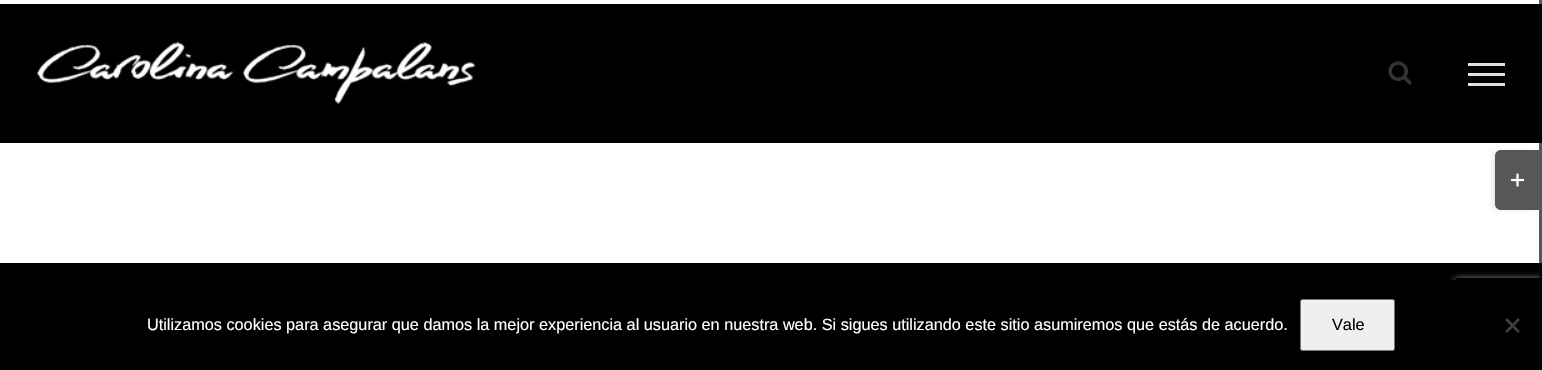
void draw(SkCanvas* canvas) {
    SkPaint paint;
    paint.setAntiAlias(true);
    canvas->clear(0xFFFFFFFF);
    canvas->save();
    canvas->clipPath(SkPathBuilder(SkPathFillType::kEvenOdd).moveTo(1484, 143).lineTo(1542, 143).lineTo(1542, 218).lineTo(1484, 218).close().moveTo(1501, 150).lineTo(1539, 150).lineTo(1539, 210).lineTo(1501, 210).cubicTo(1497.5f, 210, 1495, 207.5f, 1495, 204).lineTo(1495, 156).cubicTo(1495, 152.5f, 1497.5f, 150, 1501, 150).close().detach(), true);
    paint.setColor(0x24000000);
    paint.setMaskFilter(SkMaskFilter::MakeBlur(kNormal_SkBlurStyle, 3));
    canvas->drawRoundRect(SkRect::MakeXYWH(1494, 153, 39, 55), 4, 4, paint);
    paint.setMaskFilter(nullptr);
    canvas->restore();
    paint.setColor(0xFF000000);
    canvas->drawRect(SkRect::MakeXYWH(0, 4, 1542, 139), paint);
    canvas->drawRect(SkRect::MakeXYWH(0, 263, 1542, 17), paint);
    canvas->save();
    canvas->clipPath(SkPathBuilder(SkPathFillType::kEvenOdd).moveTo(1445, 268).lineTo(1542, 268).lineTo(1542, 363).lineTo(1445, 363).close().moveTo(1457.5f, 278).lineTo(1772.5f, 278).cubicTo(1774, 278, 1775, 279, 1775, 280.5f).lineTo(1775, 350.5f).cubicTo(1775, 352, 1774, 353, 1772.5f, 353).lineTo(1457.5f, 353).cubicTo(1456, 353, 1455, 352, 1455, 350.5f).lineTo(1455, 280.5f).cubicTo(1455, 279, 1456, 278, 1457.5f, 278).close().detach(), true);
    paint.setColor(0xFF808080);
    paint.setMaskFilter(SkMaskFilter::MakeBlur(kNormal_SkBlurStyle, 3));
    canvas->drawRoundRect(SkRect::MakeXYWH(1455, 278, 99, 75), 2.5f, 2.5f, paint);
    paint.setMaskFilter(nullptr);
    canvas->restore();
    paint.setColor(0xA8000000);
    canvas->drawRect(SkRect::MakeXYWH(1539, 0, 3, 280), paint);
    canvas->drawPath(SkPathBuilder().moveTo(1501, 150).lineTo(1539, 150).lineTo(1539, 210).lineTo(1501, 210).cubicTo(1497.5f, 210, 1495, 207.5f, 1495, 204).lineTo(1495, 156).cubicTo(1495, 152.5f, 1497.5f, 150, 1501, 150).close().detach(), paint);
    canvas->drawImageRect(SkImages::DeferredFromEncodedData(SkData::MakeFromFileName("img1.png")), SkRect::MakeXYWH(1511, 173, 13, 14), SkSamplingOptions());
    canvas->drawImageRect(SkImages::DeferredFromEncodedData(SkData::MakeFromFileName("img2.png")), SkRect::MakeXYWH(37, 42, 438, 62), SkSamplingOptions());
    canvas->drawImageRect(SkImages::DeferredFromEncodedData(SkData::MakeFromFileName("img3.png")), SkRect::MakeXYWH(1388, 61, 24, 24), SkSamplingOptions());
    paint.setColor(0xFFE0E0E0);
    canvas->drawRect(SkRect::MakeXYWH(1468, 63, 37, 3), paint);
    canvas->drawRect(SkRect::MakeXYWH(1468, 73, 37, 3), paint);
    canvas->drawRect(SkRect::MakeXYWH(1468, 83, 37, 3), paint);
    paint.setColor(0xFF000000);
    canvas->drawRect(SkRect::MakeXYWH(0, 280, 1542, 90), paint);
    SkFont font1(fontMgr->matchFamilyStyle("Liberation Sans", SkFontStyle::Normal()), 16.25f);
    font1.setSubpixel(true);
    paint.setColor(0xFFFFFFFF);
    canvas->drawString("Utilizamos cookies para asegurar que damos la mejor experiencia al usuario en nuestra web. Si sigues utilizando este sitio asumiremos que estás de acuerdo.", 147, 330, font1, paint);
    paint.setColor(0xFFEFEFEF);
    canvas->drawRoundRect(SkRect::MakeXYWH(1300.5f, 299.5f, 94, 51), 2, 2, paint);
    paint.setStyle(SkPaint::kStroke_Style);
    paint.setStrokeWidth(1);
    paint.setColor(0xFF767676);
    canvas->drawRoundRect(SkRect::MakeXYWH(1300.5f, 299.5f, 94, 51), 2, 2, paint);
    paint.setStyle(SkPaint::kFill_Style);
    paint.setColor(0xFF000000);
    canvas->drawString("Vale", 1332, 330, font1, paint);
    paint.setColor(0xFF404040);
    canvas->drawPath(SkPathBuilder().moveTo(1518, 318).lineTo(1520, 320).lineTo(1507, 333).lineTo(1505, 331.5f).close().detach(), paint);
    canvas->drawPath(SkPathBuilder().moveTo(1505, 320).lineTo(1507, 318).lineTo(1520, 331.5f).lineTo(1518, 333).close().detach(), paint);
}
